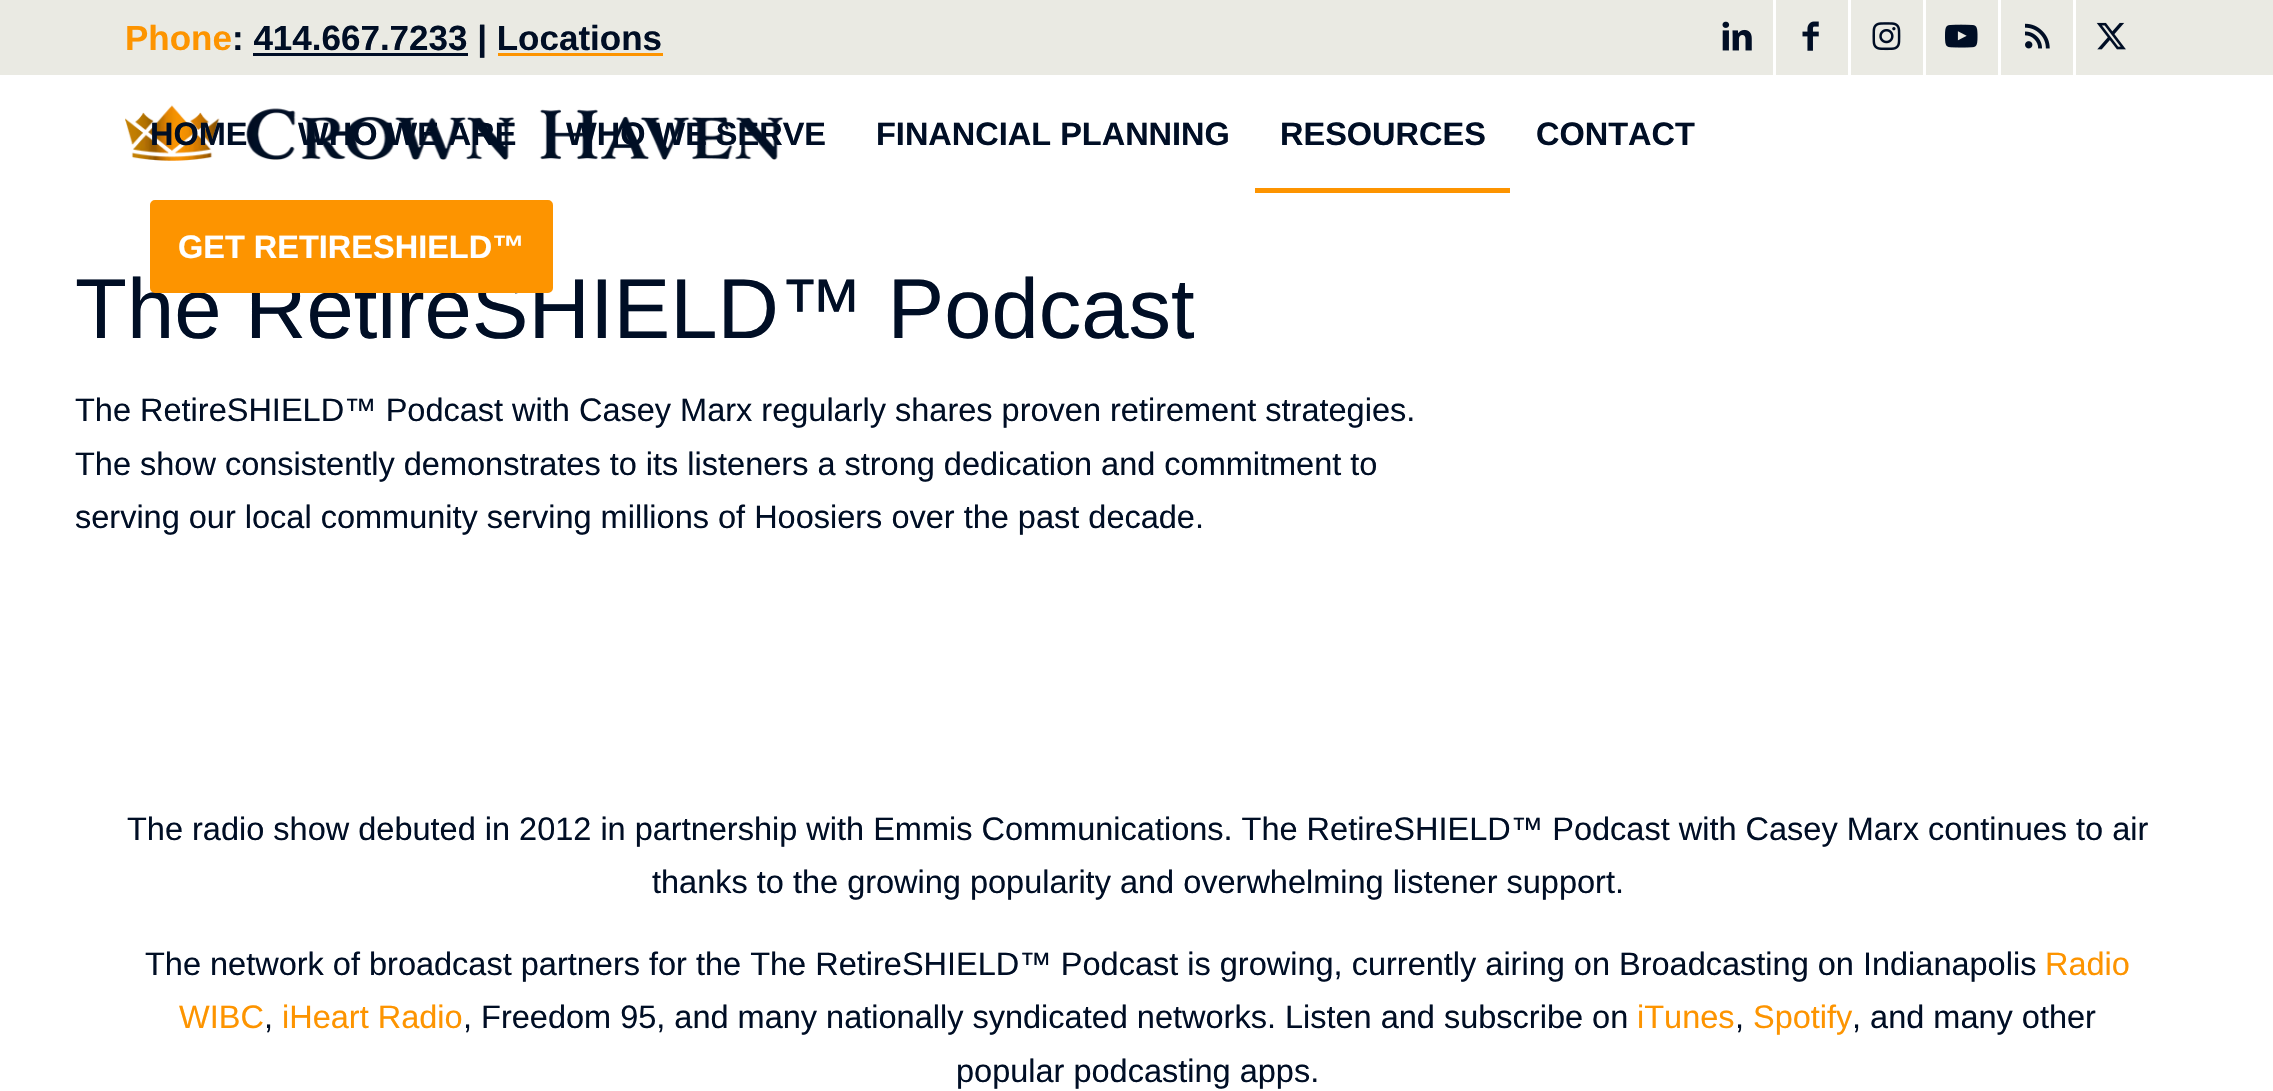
void draw(SkCanvas* canvas) {
    SkPaint paint;
    paint.setAntiAlias(true);
    canvas->clear(0xFFFFFFFF);
    paint.setColor(0xFFEAEAE3);
    canvas->drawRect(SkRect::MakeXYWH(0, 0, 2273, 75), paint);
    SkFont font1(fontMgr->matchFamilyStyle("Liberation Sans", SkFontStyle::Bold()), 35);
    font1.setSubpixel(true);
    paint.setColor(0xFFFD9400);
    canvas->drawString("Phone", 125, 50, font1, paint);
    paint.setColor(0xFF000E25);
    canvas->drawString(": 414.667.7233 | Locations", 232, 50, font1, paint);
    canvas->drawRect(SkRect::MakeXYWH(253, 53, 215, 3), paint);
    paint.setColor(0xFFFD9400);
    canvas->drawRect(SkRect::MakeXYWH(498, 53, 165, 3), paint);
    paint.setColor(0xFFFFFFFF);
    canvas->drawRect(SkRect::MakeXYWH(1773, 0, 3, 75), paint);
    canvas->drawImageRect(SkImages::DeferredFromEncodedData(SkData::MakeFromFileName("img1.png")), SkRect::MakeXYWH(1722, 21, 30, 30), SkSamplingOptions());
    canvas->drawRect(SkRect::MakeXYWH(1848, 0, 3, 75), paint);
    canvas->drawImageRect(SkImages::DeferredFromEncodedData(SkData::MakeFromFileName("img2.png")), SkRect::MakeXYWH(1802, 21, 17, 30), SkSamplingOptions());
    canvas->drawRect(SkRect::MakeXYWH(1923, 0, 3, 75), paint);
    canvas->drawImageRect(SkImages::DeferredFromEncodedData(SkData::MakeFromFileName("img3.png")), SkRect::MakeXYWH(1872, 22, 29, 29), SkSamplingOptions());
    canvas->drawRect(SkRect::MakeXYWH(1998, 0, 3, 75), paint);
    canvas->drawImageRect(SkImages::DeferredFromEncodedData(SkData::MakeFromFileName("img4.png")), SkRect::MakeXYWH(1945, 24, 33, 24), SkSamplingOptions());
    canvas->drawRect(SkRect::MakeXYWH(2073, 0, 3, 75), paint);
    canvas->drawImageRect(SkImages::DeferredFromEncodedData(SkData::MakeFromFileName("img5.png")), SkRect::MakeXYWH(2025, 23, 25, 26), SkSamplingOptions());
    canvas->drawImageRect(SkImages::DeferredFromEncodedData(SkData::MakeFromFileName("img6.png")), SkRect::MakeXYWH(2096, 22, 30, 28), SkSamplingOptions());
    canvas->drawImageRect(SkImages::DeferredFromEncodedData(SkData::MakeFromFileName("img7.png")), SkRect::MakeXYWH(125, 105, 658, 56), SkSamplingOptions());
    SkFont font2(fontMgr->matchFamilyStyle("Liberation Sans", SkFontStyle::Bold()), 32.5f);
    font2.setSubpixel(true);
    paint.setColor(0xFF000E25);
    canvas->drawString("HOME", 150, 145, font2, paint);
    canvas->drawString("WHO WE ARE", 298, 145, font2, paint);
    canvas->drawString("WHO WE SERVE", 566, 145, font2, paint);
    canvas->drawString("FINANCIAL PLANNING", 876, 145, font2, paint);
    canvas->drawString("RESOURCES", 1280, 145, font2, paint);
    paint.setColor(0xFFFD9400);
    canvas->drawRect(SkRect::MakeXYWH(1255, 188, 255, 5), paint);
    paint.setColor(0xFF000E25);
    canvas->drawString("CONTACT", 1536, 145, font2, paint);
    SkFont font3(fontMgr->matchFamilyStyle("Liberation Sans", SkFontStyle::Normal()), 85);
    font3.setSubpixel(true);
    canvas->drawString("The RetireSHIELD™ Podcast", 75, 338, font3, paint);
    paint.setColor(0xFFFD9400);
    canvas->drawRoundRect(SkRect::MakeXYWH(152.5f, 202.5f, 398, 88), 2.5f, 2.5f, paint);
    paint.setStyle(SkPaint::kStroke_Style);
    paint.setStrokeWidth(5);
    canvas->drawRoundRect(SkRect::MakeXYWH(152.5f, 202.5f, 398, 88), 2.5f, 2.5f, paint);
    paint.setStyle(SkPaint::kFill_Style);
    paint.setColor(0xFFFFFFFF);
    canvas->drawString("GET RETIRESHIELD™", 178, 258, font2, paint);
    SkFont font4(fontMgr->matchFamilyStyle("Liberation Sans", SkFontStyle::Normal()), 32.5f);
    font4.setSubpixel(true);
    paint.setColor(0xFF000E25);
    canvas->drawString("The RetireSHIELD™ Podcast with Casey Marx regularly shares proven retirement strategies.", 75, 421, font4, paint);
    canvas->drawString("The show consistently demonstrates to its listeners a strong dedication and commitment to", 75, 475, font4, paint);
    canvas->drawString("serving our local community serving millions of Hoosiers over the past decade.", 75, 528, font4, paint);
    canvas->drawString("The radio show debuted in 2012 in partnership with Emmis Communications. The RetireSHIELD™ Podcast with Casey Marx continues to air", 127, 840, font4, paint);
    canvas->drawString("thanks to the growing popularity and overwhelming listener support.", 652, 893, font4, paint);
    canvas->drawString("The network of broadcast partners for the The RetireSHIELD™ Podcast is growing, currently airing on Broadcasting on Indianapolis", 145, 975, font4, paint);
    paint.setColor(0xFFFD9400);
    canvas->drawString("Radio", 2045, 975, font4, paint);
    canvas->drawString("WIBC", 179, 1028, font4, paint);
    paint.setColor(0xFF000E25);
    canvas->drawString(",", 264, 1028, font4, paint);
    paint.setColor(0xFFFD9400);
    canvas->drawString("iHeart Radio", 282, 1028, font4, paint);
    paint.setColor(0xFF000E25);
    canvas->drawString(", Freedom 95, and many nationally syndicated networks. Listen and subscribe on", 463, 1028, font4, paint);
    paint.setColor(0xFFFD9400);
    canvas->drawString("iTunes", 1637, 1028, font4, paint);
    paint.setColor(0xFF000E25);
    canvas->drawString(",", 1735, 1028, font4, paint);
    paint.setColor(0xFFFD9400);
    canvas->drawString("Spotify", 1753, 1028, font4, paint);
    paint.setColor(0xFF000E25);
    canvas->drawString(", and many other", 1852, 1028, font4, paint);
    canvas->drawString("popular podcasting apps.", 956, 1082, font4, paint);
}
